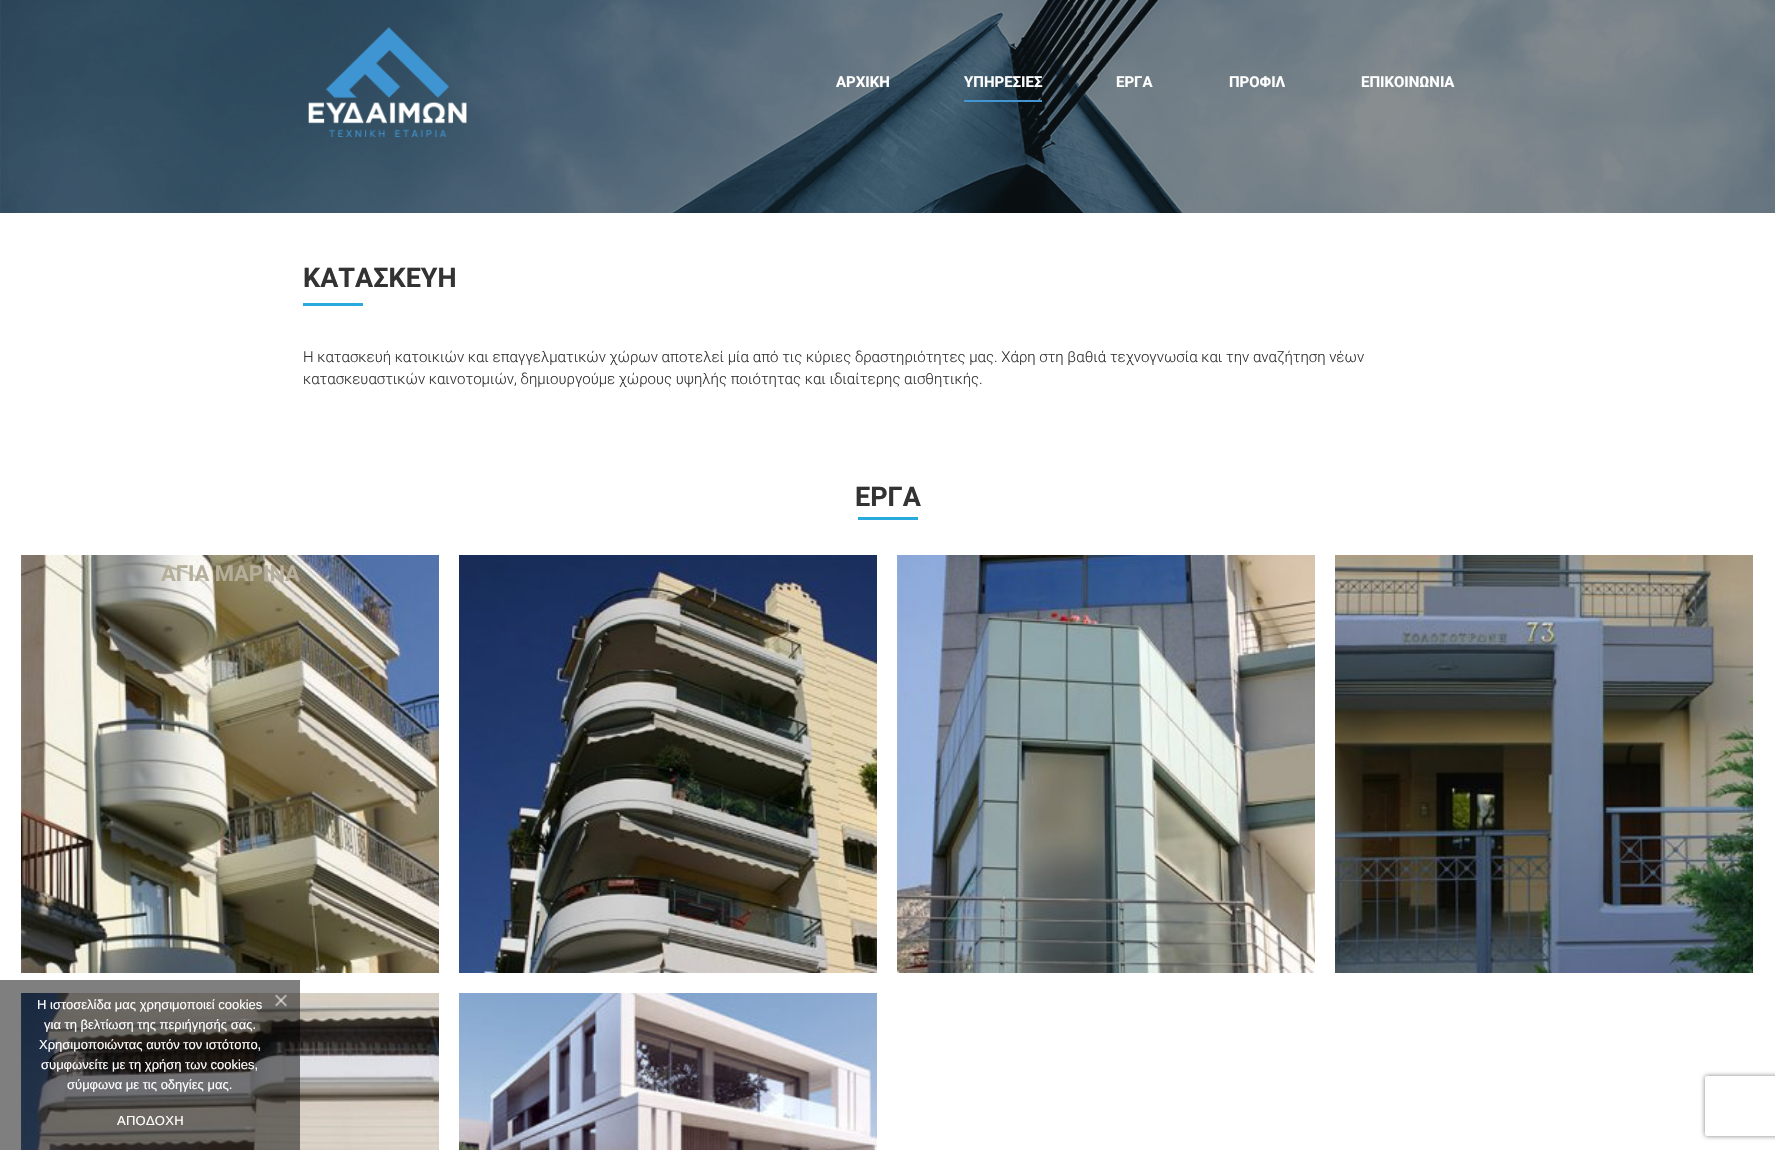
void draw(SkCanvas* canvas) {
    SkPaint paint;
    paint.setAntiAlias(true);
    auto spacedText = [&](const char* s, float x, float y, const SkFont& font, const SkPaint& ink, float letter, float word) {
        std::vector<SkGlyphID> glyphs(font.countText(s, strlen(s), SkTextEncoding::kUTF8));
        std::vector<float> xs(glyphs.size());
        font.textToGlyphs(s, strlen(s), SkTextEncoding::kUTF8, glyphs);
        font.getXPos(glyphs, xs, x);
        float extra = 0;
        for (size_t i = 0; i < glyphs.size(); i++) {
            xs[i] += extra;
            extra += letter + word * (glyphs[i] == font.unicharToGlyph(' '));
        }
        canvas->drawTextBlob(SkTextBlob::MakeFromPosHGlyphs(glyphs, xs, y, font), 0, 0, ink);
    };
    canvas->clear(0xFFFFFFFF);
    canvas->drawImageRect(SkImages::DeferredFromEncodedData(SkData::MakeFromFileName("img2.png")), SkRect::MakeXYWH(0, 0, 1775, 213), SkSamplingOptions());
    canvas->drawImageRect(SkImages::DeferredFromEncodedData(SkData::MakeFromFileName("img1.png")), SkRect::MakeXYWH(308, 27, 159, 110), SkSamplingOptions());
    SkFont font1(fontMgr->matchFamilyStyle("Roboto", SkFontStyle::Bold()), 15);
    font1.setSubpixel(true);
    paint.setColor(0xFFFFFFFF);
    canvas->drawString("ΑΡΧΙΚΗ", 836, 87, font1, paint);
    canvas->drawString("ΥΠΗΡΕΣΙΕΣ", 964, 87, font1, paint);
    paint.setColor(0xFF4295D1);
    canvas->drawRect(SkRect::MakeXYWH(964, 100, 78, 2), paint);
    paint.setColor(0xFFFFFFFF);
    canvas->drawString("ΕΡΓΑ", 1116, 87, font1, paint);
    canvas->drawString("ΠΡΟΦΙΛ", 1229, 87, font1, paint);
    canvas->drawString("ΕΠΙΚΟΙΝΩΝΙΑ", 1361, 87, font1, paint);
    SkFont font2(fontMgr->matchFamilyStyle("Roboto", SkFontStyle::Bold()), 27);
    font2.setSubpixel(true);
    paint.setColor(0xFF333333);
    canvas->drawString("ΚΑΤΑΣΚΕΥΗ", 303, 287, font2, paint);
    paint.setColor(0xFF28AADC);
    canvas->drawRect(SkRect::MakeXYWH(303, 303, 60, 3), paint);
    SkFont font3(fontMgr->matchFamilyStyle("Roboto", SkFontStyle(300, SkFontStyle::kNormal_Width, SkFontStyle::kUpright_Slant)), 15);
    font3.setSubpixel(true);
    paint.setColor(0xFF333333);
    canvas->drawString("Η κατασκευή κατοικιών και επαγγελματικών χώρων αποτελεί μία από τις κύριες δραστηριότητες μας. Χάρη στη βαθιά τεχνογνωσία και την αναζήτηση νέων", 303, 362, font3, paint);
    canvas->drawString("κατασκευαστικών καινοτομιών, δημιουργούμε χώρους υψηλής ποιότητας και ιδιαίτερης αισθητικής.", 303, 384, font3, paint);
    canvas->drawString("ΕΡΓΑ", 855, 506, font2, paint);
    paint.setColor(0xFF28AADC);
    canvas->drawRect(SkRect::MakeXYWH(858, 517, 60, 3), paint);
    canvas->drawImageRect(SkImages::DeferredFromEncodedData(SkData::MakeFromFileName("img3.png")), SkRect::MakeXYWH(21, 555, 418, 418), SkSamplingOptions());
    SkFont font4(fontMgr->matchFamilyStyle("Roboto", SkFontStyle::Bold()), 22);
    font4.setSubpixel(true);
    paint.setColor(0xFFB5AE9B);
    canvas->drawString("ΑΓΙΑ ΜΑΡΙΝΑ", 161, 581, font4, paint);
    canvas->drawImageRect(SkImages::DeferredFromEncodedData(SkData::MakeFromFileName("img4.png")), SkRect::MakeXYWH(459, 555, 418, 418), SkSamplingOptions());
    canvas->drawImageRect(SkImages::DeferredFromEncodedData(SkData::MakeFromFileName("img5.png")), SkRect::MakeXYWH(897, 555, 418, 418), SkSamplingOptions());
    canvas->drawImageRect(SkImages::DeferredFromEncodedData(SkData::MakeFromFileName("img6.png")), SkRect::MakeXYWH(1335, 555, 418, 418), SkSamplingOptions());
    canvas->drawImageRect(SkImages::DeferredFromEncodedData(SkData::MakeFromFileName("img7.png")), SkRect::MakeXYWH(21, 993, 418, 157), SkSamplingOptions());
    canvas->drawImageRect(SkImages::DeferredFromEncodedData(SkData::MakeFromFileName("img8.png")), SkRect::MakeXYWH(459, 993, 418, 157), SkSamplingOptions());
    paint.setColor(0x80000000);
    canvas->drawRect(SkRect::MakeXYWH(0, 980, 300, 170), paint);
    SkFont font5(fontMgr->matchFamilyStyle("Liberation Sans", SkFontStyle::Normal()), 13);
    font5.setSubpixel(true);
    paint.setColor(0xFFFFFFFF);
    canvas->drawString("Η ιστοσελίδα μας χρησιμοποιεί cookies", 37, 1009, font5, paint);
    canvas->drawString("για τη βελτίωση της περιήγησής σας.", 44, 1029, font5, paint);
    canvas->drawString("Χρησιμοποιώντας αυτόν τον ιστότοπο,", 39, 1049, font5, paint);
    canvas->drawString("συμφωνείτε με τη χρήση των cookies,", 41, 1069, font5, paint);
    canvas->drawString("σύμφωνα με τις οδηγίες μας.", 67, 1089, font5, paint);
    paint.setColor(0x80FFFFFF);
    canvas->drawPath(SkPathBuilder().moveTo(285.5f, 994.5f).lineTo(287, 996).lineTo(276.5f, 1006.5f).lineTo(275, 1005).close().detach(), paint);
    canvas->drawPath(SkPathBuilder().moveTo(275, 996).lineTo(276.5f, 994.5f).lineTo(287, 1005).lineTo(285.5f, 1006.5f).close().detach(), paint);
    paint.setColor(0xFFFFFFFF);
    spacedText("ΑΠΟΔΟΧΗ", 117, 1125, font5, paint, 0.25f, 0);
    canvas->save();
    canvas->clipPath(SkPathBuilder(SkPathFillType::kEvenOdd).moveTo(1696, 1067).lineTo(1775, 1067).lineTo(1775, 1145).lineTo(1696, 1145).close().moveTo(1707, 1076).lineTo(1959, 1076).cubicTo(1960, 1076, 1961, 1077, 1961, 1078).lineTo(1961, 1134).cubicTo(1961, 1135, 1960, 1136, 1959, 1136).lineTo(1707, 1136).cubicTo(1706, 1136, 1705, 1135, 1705, 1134).lineTo(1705, 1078).cubicTo(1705, 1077, 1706, 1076, 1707, 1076).close().detach(), true);
    paint.setColor(0xFF808080);
    paint.setMaskFilter(SkMaskFilter::MakeBlur(kNormal_SkBlurStyle, 2.5f));
    canvas->drawRoundRect(SkRect::MakeXYWH(1705, 1076, 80, 60), 2, 2, paint);
    paint.setMaskFilter(nullptr);
    canvas->restore();
}
